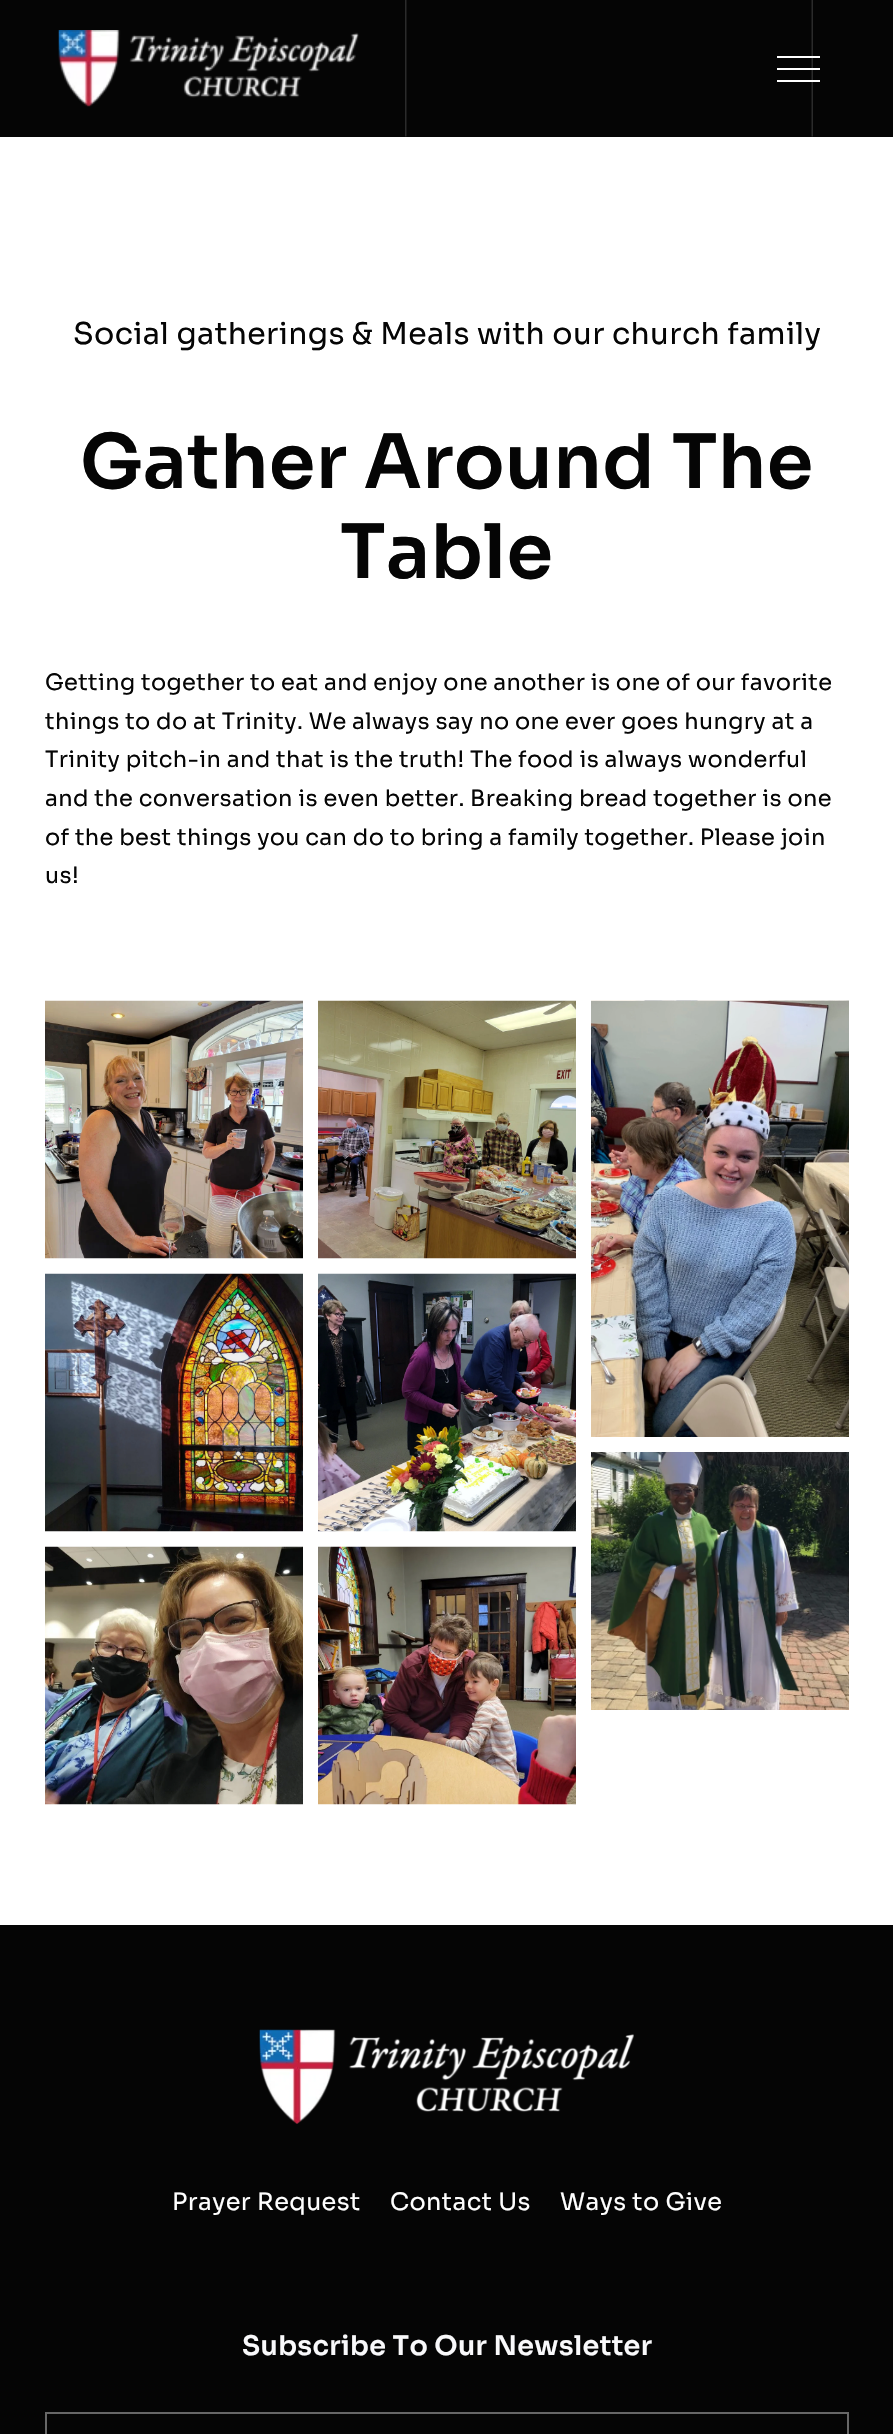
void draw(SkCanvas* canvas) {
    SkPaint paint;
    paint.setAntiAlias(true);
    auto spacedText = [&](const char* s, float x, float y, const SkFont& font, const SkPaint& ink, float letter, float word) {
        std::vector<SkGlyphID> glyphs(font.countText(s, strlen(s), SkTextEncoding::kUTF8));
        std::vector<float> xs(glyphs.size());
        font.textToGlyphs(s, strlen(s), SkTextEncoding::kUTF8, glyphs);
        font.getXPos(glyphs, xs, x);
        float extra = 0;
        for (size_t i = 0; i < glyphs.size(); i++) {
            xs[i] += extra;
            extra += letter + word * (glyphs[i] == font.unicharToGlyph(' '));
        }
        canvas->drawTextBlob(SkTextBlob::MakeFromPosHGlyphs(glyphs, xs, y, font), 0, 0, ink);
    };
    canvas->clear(0xFFFFFFFF);
    paint.setColor(0xFF050505);
    canvas->drawRect(SkRect::MakeXYWH(0, 0, 893, 137), paint);
    canvas->drawImageRect(SkImages::DeferredFromEncodedData(SkData::MakeFromFileName("img1.png")), SkRect::MakeXYWH(405, 0, 408, 137), SkSamplingOptions());
    canvas->drawImageRect(SkImages::DeferredFromEncodedData(SkData::MakeFromFileName("img2.png")), SkRect::MakeXYWH(58, 30, 301, 77), SkSamplingOptions());
    paint.setColor(0xFFFFFFFF);
    canvas->drawPath(SkPathBuilder().moveTo(777, 82).lineTo(777, 80).lineTo(820, 80).lineTo(820, 82).close().moveTo(777, 70).lineTo(777, 68).lineTo(820, 68).lineTo(820, 70).close().moveTo(777, 58).lineTo(777, 56).lineTo(820, 56).lineTo(820, 58).close().detach(), paint);
    SkFont font1(fontMgr->matchFamilyStyle("Sora", SkFontStyle::Normal()), 30);
    font1.setSubpixel(true);
    paint.setColor(0xFF050505);
    spacedText("Social gatherings & Meals with our church family", 73, 344, font1, paint, 0.35f, 0);
    SkFont font2(fontMgr->matchFamilyStyle("Sora", SkFontStyle(600, SkFontStyle::kNormal_Width, SkFontStyle::kUpright_Slant)), 75);
    font2.setSubpixel(true);
    spacedText("Gather Around The", 80, 488, font2, paint, 0.35f, 0);
    spacedText("Table", 340, 578, font2, paint, 0.35f, 0);
    SkFont font3(fontMgr->matchFamilyStyle("Sora", SkFontStyle::Normal()), 22.5f);
    font3.setSubpixel(true);
    spacedText("Getting together to eat and enjoy one another is one of our favorite", 45, 690, font3, paint, 0.35f, 0);
    spacedText("things to do at Trinity. We always say no one ever goes hungry at a", 45, 729, font3, paint, 0.35f, 0);
    spacedText("Trinity pitch-in and that is the truth! The food is always wonderful", 45, 767, font3, paint, 0.35f, 0);
    spacedText("and the conversation is even better. Breaking bread together is one", 45, 806, font3, paint, 0.35f, 0);
    spacedText("of the best things you can do to bring a family together. Please join", 45, 845, font3, paint, 0.35f, 0);
    spacedText("us!", 45, 883, font3, paint, 0.35f, 0);
    canvas->drawImageRect(SkImages::DeferredFromEncodedData(SkData::MakeFromFileName("img3.png")), SkRect::MakeXYWH(45, 1000, 258, 259), SkSamplingOptions());
    canvas->drawImageRect(SkImages::DeferredFromEncodedData(SkData::MakeFromFileName("img4.png")), SkRect::MakeXYWH(318, 1000, 258, 259), SkSamplingOptions());
    canvas->drawImageRect(SkImages::DeferredFromEncodedData(SkData::MakeFromFileName("img5.png")), SkRect::MakeXYWH(591, 1000, 258, 437), SkSamplingOptions());
    canvas->drawImageRect(SkImages::DeferredFromEncodedData(SkData::MakeFromFileName("img6.png")), SkRect::MakeXYWH(45, 1273, 258, 259), SkSamplingOptions());
    canvas->drawImageRect(SkImages::DeferredFromEncodedData(SkData::MakeFromFileName("img7.png")), SkRect::MakeXYWH(318, 1273, 258, 259), SkSamplingOptions());
    canvas->drawImageRect(SkImages::DeferredFromEncodedData(SkData::MakeFromFileName("img8.png")), SkRect::MakeXYWH(45, 1546, 258, 259), SkSamplingOptions());
    canvas->drawImageRect(SkImages::DeferredFromEncodedData(SkData::MakeFromFileName("img9.png")), SkRect::MakeXYWH(318, 1546, 258, 259), SkSamplingOptions());
    canvas->drawImageRect(SkImages::DeferredFromEncodedData(SkData::MakeFromFileName("img10.png")), SkRect::MakeXYWH(591, 1452, 258, 258), SkSamplingOptions());
    canvas->drawRect(SkRect::MakeXYWH(0, 1925, 893, 509), paint);
    canvas->drawImageRect(SkImages::DeferredFromEncodedData(SkData::MakeFromFileName("img11.png")), SkRect::MakeXYWH(259, 2029, 375, 95), SkSamplingOptions());
    SkFont font4(fontMgr->matchFamilyStyle("Sora", SkFontStyle::Normal()), 24);
    font4.setSubpixel(true);
    paint.setColor(0xFFFFFFFF);
    spacedText("Prayer Request", 172, 2210, font4, paint, 0.4f, 0);
    spacedText("Contact Us", 390, 2210, font4, paint, 0.4f, 0);
    spacedText("Ways to Give", 560, 2210, font4, paint, 0.4f, 0);
    SkFont font5(fontMgr->matchFamilyStyle("Sora", SkFontStyle(600, SkFontStyle::kNormal_Width, SkFontStyle::kUpright_Slant)), 27);
    font5.setSubpixel(true);
    paint.setColor(0xFFF9F9FB);
    spacedText("Subscribe To Our Newsletter", 242, 2355, font5, paint, 0.35f, 0);
    paint.setStyle(SkPaint::kStroke_Style);
    paint.setStrokeWidth(2);
    paint.setColor(0xFF676767);
    canvas->drawRect(SkRect::MakeXYWH(46, 2413, 802, 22), paint);
}
